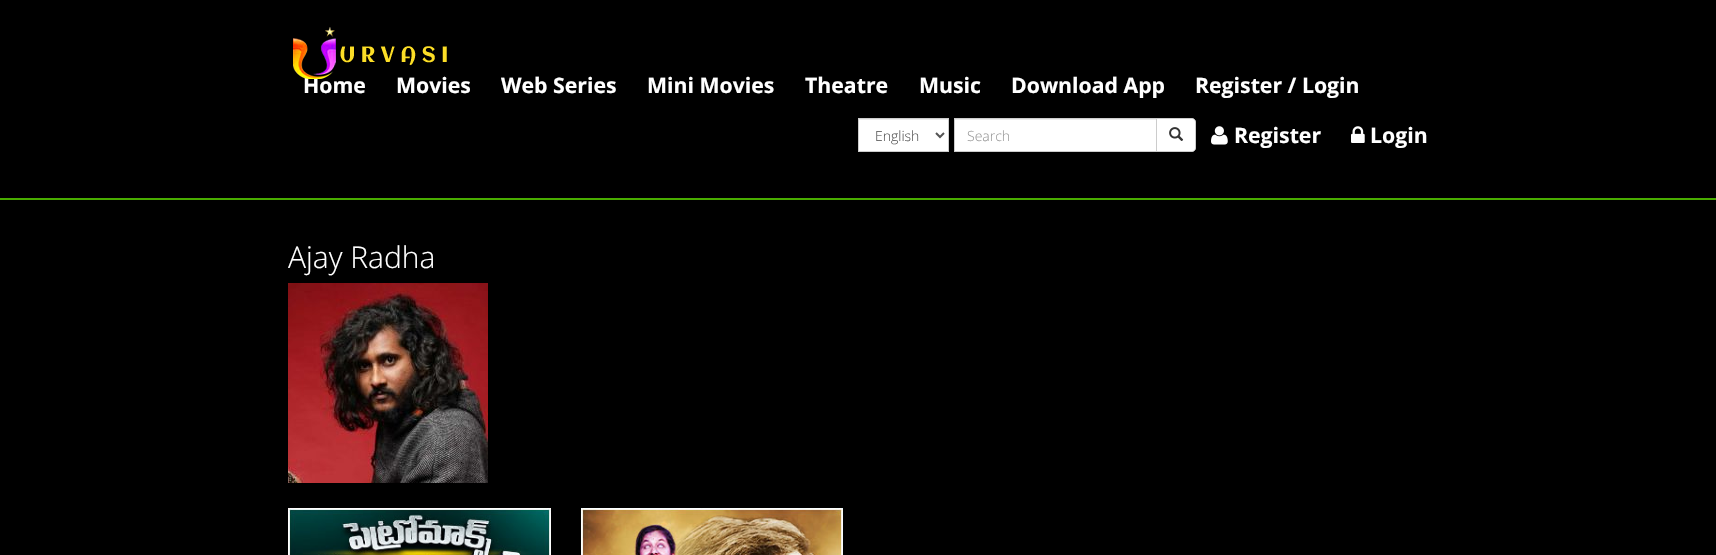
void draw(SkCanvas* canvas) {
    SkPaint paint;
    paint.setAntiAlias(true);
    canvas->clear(0xFF000000);
    paint.setColor(0xFF49AC00);
    canvas->drawRect(SkRect::MakeXYWH(0, 198, 1716, 2), paint);
    SkFont font1(fontMgr->matchFamilyStyle("Open Sans", SkFontStyle::Bold()), 21.25f);
    font1.setSubpixel(true);
    paint.setColor(0xFFFFFFFF);
    canvas->drawString("Home", 303, 93, font1, paint);
    canvas->drawString("Movies", 396, 93, font1, paint);
    canvas->drawImageRect(SkImages::DeferredFromEncodedData(SkData::MakeFromFileName("img1.png")), SkRect::MakeXYWH(293, 27, 154, 52), SkSamplingOptions());
    canvas->drawString("Web Series", 501, 93, font1, paint);
    canvas->drawString("Mini Movies", 647, 93, font1, paint);
    canvas->drawString("Theatre", 805, 93, font1, paint);
    canvas->drawString("Music", 919, 93, font1, paint);
    canvas->drawString("Download App", 1011, 93, font1, paint);
    canvas->drawString("Register / Login", 1195, 93, font1, paint);
    canvas->drawRect(SkRect::MakeXYWH(859, 120, 89, 31), paint);
    paint.setColor(0xFFECECEC);
    canvas->drawRect(SkRect::MakeXYWH(859, 119, 89, 1), paint);
    paint.setStyle(SkPaint::kStroke_Style);
    paint.setStrokeWidth(1);
    paint.setColor(0xFFCCCCCC);
    canvas->drawRect(SkRect::MakeXYWH(858.5f, 118.5f, 90, 33), paint);
    paint.setStrokeWidth(2);
    paint.setColor(0xFF555555);
    canvas->drawPath(SkPathBuilder().moveTo(936, 133).lineTo(940, 137).lineTo(944, 133).detach(), paint);
    SkFont font2(fontMgr->matchFamilyStyle("Open Sans", SkFontStyle(300, SkFontStyle::kNormal_Width, SkFontStyle::kUpright_Slant)), 14);
    font2.setSubpixel(true);
    paint.setStyle(SkPaint::kFill_Style);
    canvas->drawString("English", 875, 141, font2, paint);
    paint.setColor(0xFFFFFFFF);
    canvas->drawRect(SkRect::MakeXYWH(955, 120, 201, 31), paint);
    paint.setColor(0xFFECECEC);
    canvas->drawRect(SkRect::MakeXYWH(955, 119, 201, 1), paint);
    paint.setColor(0xFFFFFFFF);
    canvas->drawPath(SkPathBuilder().moveTo(1156.5f, 118.5f).lineTo(1192, 118.5f).cubicTo(1194, 118.5f, 1195.5f, 120, 1195.5f, 122).lineTo(1195.5f, 148).cubicTo(1195.5f, 150, 1194, 151.5f, 1192, 151.5f).lineTo(1156.5f, 151.5f).close().detach(), paint);
    paint.setStyle(SkPaint::kStroke_Style);
    paint.setStrokeWidth(1);
    paint.setColor(0xFFCCCCCC);
    canvas->drawPath(SkPathBuilder().moveTo(1156.5f, 118.5f).lineTo(1192, 118.5f).cubicTo(1194, 118.5f, 1195.5f, 120, 1195.5f, 122).lineTo(1195.5f, 148).cubicTo(1195.5f, 150, 1194, 151.5f, 1192, 151.5f).lineTo(1156.5f, 151.5f).close().detach(), paint);
    canvas->drawRect(SkRect::MakeXYWH(954.5f, 118.5f, 202, 33), paint);
    paint.setStyle(SkPaint::kFill_Style);
    paint.setColor(0xFF999999);
    canvas->drawString("Search", 967, 141, font2, paint);
    canvas->drawImageRect(SkImages::DeferredFromEncodedData(SkData::MakeFromFileName("img2.png")), SkRect::MakeXYWH(1169, 127, 15, 14), SkSamplingOptions());
    canvas->drawImageRect(SkImages::DeferredFromEncodedData(SkData::MakeFromFileName("img3.png")), SkRect::MakeXYWH(1211, 126, 17, 19), SkSamplingOptions());
    paint.setColor(0xFFFFFFFF);
    canvas->drawString("Register", 1234, 143, font1, paint);
    canvas->drawImageRect(SkImages::DeferredFromEncodedData(SkData::MakeFromFileName("img4.png")), SkRect::MakeXYWH(1351, 126, 14, 17), SkSamplingOptions());
    canvas->drawString("Login", 1370, 143, font1, paint);
    SkFont font3(fontMgr->matchFamilyStyle("Open Sans", SkFontStyle(300, SkFontStyle::kNormal_Width, SkFontStyle::kUpright_Slant)), 30);
    font3.setSubpixel(true);
    canvas->drawString("Ajay Radha", 288, 268, font3, paint);
    canvas->drawImageRect(SkImages::DeferredFromEncodedData(SkData::MakeFromFileName("img5.png")), SkRect::MakeXYWH(288, 283, 200, 200), SkSamplingOptions());
    canvas->drawImageRect(SkImages::DeferredFromEncodedData(SkData::MakeFromFileName("img6.png")), SkRect::MakeXYWH(288, 508, 263, 47), SkSamplingOptions());
    canvas->drawImageRect(SkImages::DeferredFromEncodedData(SkData::MakeFromFileName("img7.png")), SkRect::MakeXYWH(581, 508, 262, 47), SkSamplingOptions());
}
